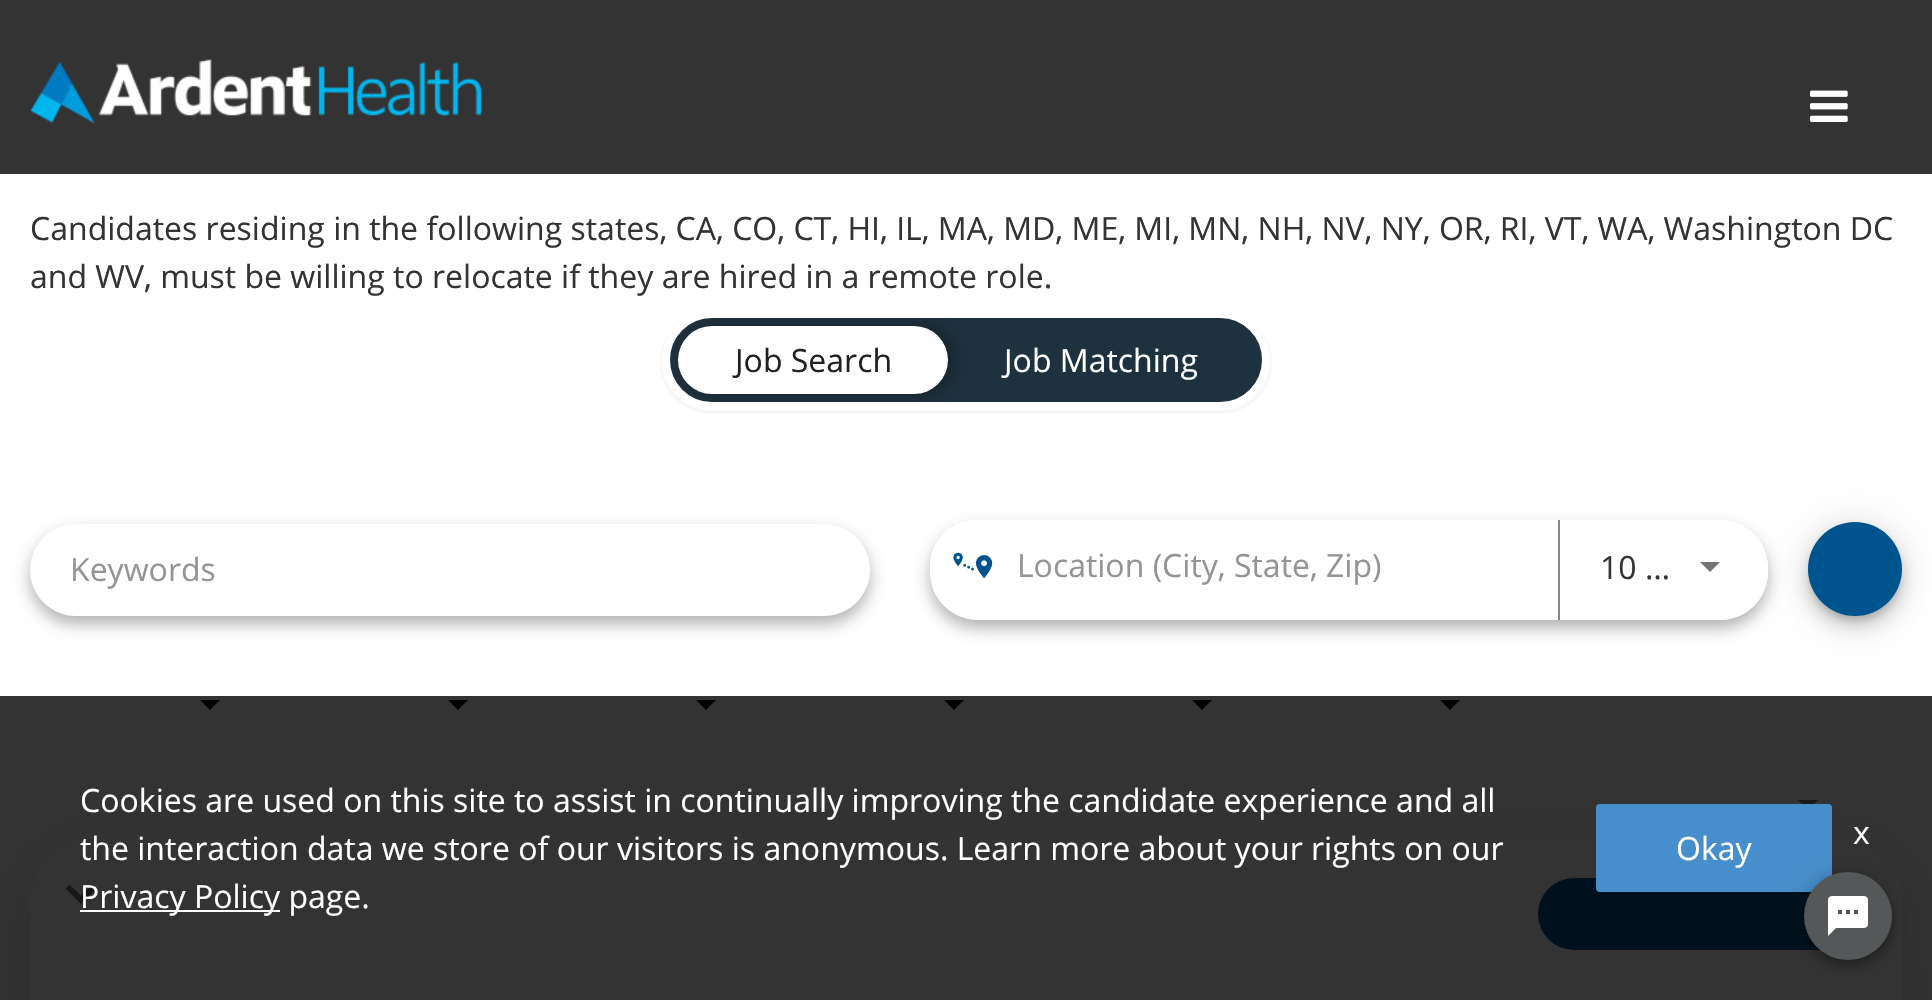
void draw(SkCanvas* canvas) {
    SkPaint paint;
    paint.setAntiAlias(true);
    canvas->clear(0xFFFFFFFF);
    paint.setColor(0xFF333333);
    canvas->drawRect(SkRect::MakeXYWH(0, 0, 1932, 174), paint);
    canvas->drawImageRect(SkImages::DeferredFromEncodedData(SkData::MakeFromFileName("img1.png")), SkRect::MakeXYWH(30, 59, 452, 65), SkSamplingOptions());
    canvas->drawImageRect(SkImages::DeferredFromEncodedData(SkData::MakeFromFileName("img2.png")), SkRect::MakeXYWH(1810, 90, 38, 32), SkSamplingOptions());
    SkFont font1(fontMgr->matchFamilyStyle("Open Sans", SkFontStyle::Normal()), 32);
    font1.setSubpixel(true);
    canvas->drawString("Candidates residing in the following states, CA, CO, CT, HI, IL, MA, MD, ME, MI, MN, NH, NV, NY, OR, RI, VT, WA, Washington DC", 30, 240, font1, paint);
    canvas->drawString("and WV, must be willing to relocate if they are hired in a remote role.", 30, 288, font1, paint);
    paint.setColor(0x08000000);
    canvas->drawPath(SkPathBuilder().moveTo(712, 310).cubicTo(683, 310, 660, 333, 660, 362).cubicTo(660, 391, 683, 414, 712, 414).lineTo(1220, 414).cubicTo(1249, 414, 1272, 391, 1272, 362).cubicTo(1272, 333, 1249, 310, 1220, 310).cubicTo(1248, 310, 1270, 332, 1270, 360).cubicTo(1270, 388, 1248, 410, 1220, 410).lineTo(712, 410).cubicTo(684, 410, 662, 388, 662, 360).cubicTo(662, 332, 684, 310, 712, 310).close().detach(), paint);
    paint.setColor(0xFF1E313E);
    canvas->drawRoundRect(SkRect::MakeXYWH(666, 314, 600, 92), 46, 46, paint);
    paint.setStyle(SkPaint::kStroke_Style);
    paint.setStrokeWidth(8);
    paint.setColor(0xFFFFFFFF);
    canvas->drawRoundRect(SkRect::MakeXYWH(666, 314, 600, 92), 46, 46, paint);
    canvas->save();
    canvas->clipPath(SkPathBuilder().moveTo(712, 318).lineTo(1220, 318).cubicTo(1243, 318, 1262, 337, 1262, 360).cubicTo(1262, 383, 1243, 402, 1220, 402).lineTo(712, 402).cubicTo(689, 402, 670, 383, 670, 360).cubicTo(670, 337, 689, 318, 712, 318).close().detach(), true);
    paint.setStyle(SkPaint::kFill_Style);
    paint.setColor(0x4D000000);
    paint.setMaskFilter(SkMaskFilter::MakeBlur(kNormal_SkBlurStyle, 8));
    canvas->drawRoundRect(SkRect::MakeXYWH(684, 326, 270, 68), 34, 34, paint);
    paint.setMaskFilter(nullptr);
    canvas->restore();
    paint.setColor(0xFFFFFFFF);
    canvas->drawRoundRect(SkRect::MakeXYWH(678, 326, 270, 68), 34, 34, paint);
    paint.setColor(0xFF212121);
    canvas->drawString("Job Search", 735, 372, font1, paint);
    paint.setColor(0xFFFFFFFF);
    canvas->drawString("Job Matching", 1004, 372, font1, paint);
    paint.setColor(0x4D000000);
    paint.setMaskFilter(SkMaskFilter::MakeBlur(kNormal_SkBlurStyle, 8));
    canvas->drawRoundRect(SkRect::MakeXYWH(30, 532, 840, 92), 46, 46, paint);
    paint.setMaskFilter(nullptr);
    paint.setColor(0xFFFFFFFF);
    canvas->drawRoundRect(SkRect::MakeXYWH(30, 524, 840, 92), 46, 46, paint);
    paint.setColor(0xFF949494);
    canvas->drawString("Keywords", 70, 581, font1, paint);
    canvas->save();
    canvas->clipPath(SkPathBuilder(SkPathFillType::kEvenOdd).moveTo(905, 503).lineTo(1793, 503).lineTo(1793, 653).lineTo(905, 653).close().moveTo(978, 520).lineTo(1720, 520).cubicTo(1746.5f, 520, 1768, 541.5f, 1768, 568).lineTo(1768, 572).cubicTo(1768, 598.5f, 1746.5f, 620, 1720, 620).lineTo(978, 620).cubicTo(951.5f, 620, 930, 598.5f, 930, 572).lineTo(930, 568).cubicTo(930, 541.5f, 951.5f, 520, 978, 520).close().detach(), true);
    paint.setColor(0x4D000000);
    paint.setMaskFilter(SkMaskFilter::MakeBlur(kNormal_SkBlurStyle, 8));
    canvas->drawRoundRect(SkRect::MakeXYWH(930, 528, 838, 100), 48, 48, paint);
    paint.setMaskFilter(nullptr);
    canvas->restore();
    paint.setColor(0xFFFFFFFF);
    canvas->drawPath(SkPathBuilder().moveTo(976, 520).lineTo(1542, 520).lineTo(1542, 612).lineTo(976, 612).cubicTo(950.5f, 612, 930, 591.5f, 930, 566).cubicTo(930, 540.5f, 950.5f, 520, 976, 520).close().detach(), paint);
    canvas->drawImageRect(SkImages::DeferredFromEncodedData(SkData::MakeFromFileName("img3.png")), SkRect::MakeXYWH(953, 552, 40, 27), SkSamplingOptions());
    paint.setColor(0xFF949494);
    canvas->drawString("Location (City, State, Zip)", 1017, 577, font1, paint);
    paint.setColor(0xFFFFFFFF);
    canvas->drawPath(SkPathBuilder().moveTo(1558, 520).lineTo(1720, 520).cubicTo(1746.5f, 520, 1768, 541.5f, 1768, 568).lineTo(1768, 572).cubicTo(1768, 598.5f, 1746.5f, 620, 1720, 620).lineTo(1558, 620).close().detach(), paint);
    paint.setColor(0xFF888888);
    canvas->drawRect(SkRect::MakeXYWH(1558, 520, 2, 100), paint);
    paint.setColor(0xFF333333);
    canvas->drawString("10 …", 1600, 579, font1, paint);
    paint.setColor(0xFF757575);
    canvas->drawPath(SkPathBuilder().moveTo(1700, 562).lineTo(1720, 562).lineTo(1710, 572).close().detach(), paint);
    paint.setColor(0x1F000000);
    paint.setMaskFilter(SkMaskFilter::MakeBlur(kNormal_SkBlurStyle, 18));
    canvas->drawRoundRect(SkRect::MakeXYWH(1808, 524, 94, 94), 47, 47, paint);
    paint.setMaskFilter(nullptr);
    paint.setColor(0x24000000);
    paint.setMaskFilter(SkMaskFilter::MakeBlur(kNormal_SkBlurStyle, 10));
    canvas->drawRoundRect(SkRect::MakeXYWH(1808, 534, 94, 94), 47, 47, paint);
    paint.setMaskFilter(nullptr);
    paint.setColor(0x33000000);
    paint.setMaskFilter(SkMaskFilter::MakeBlur(kNormal_SkBlurStyle, 5));
    canvas->drawRoundRect(SkRect::MakeXYWH(1810, 530, 90, 90), 45, 45, paint);
    paint.setMaskFilter(nullptr);
    paint.setColor(0xFF00548E);
    canvas->drawCircle(1855, 569, 47, paint);
    paint.setColor(0xFF000000);
    canvas->drawPath(SkPathBuilder().moveTo(200, 700).lineTo(220, 700).lineTo(210, 710).close().detach(), paint);
    canvas->drawPath(SkPathBuilder().moveTo(448, 700).lineTo(468, 700).lineTo(458, 710).close().detach(), paint);
    canvas->drawPath(SkPathBuilder().moveTo(696, 700).lineTo(716, 700).lineTo(706, 710).close().detach(), paint);
    canvas->drawPath(SkPathBuilder().moveTo(944, 700).lineTo(964, 700).lineTo(954, 710).close().detach(), paint);
    canvas->drawPath(SkPathBuilder().moveTo(1192, 700).lineTo(1212, 700).lineTo(1202, 710).close().detach(), paint);
    canvas->drawPath(SkPathBuilder().moveTo(1440, 700).lineTo(1460, 700).lineTo(1450, 710).close().detach(), paint);
    paint.setColor(0xFF757575);
    canvas->drawPath(SkPathBuilder().moveTo(1798, 800).lineTo(1818, 800).lineTo(1808, 810).close().detach(), paint);
    paint.setColor(0x0D000000);
    paint.setMaskFilter(SkMaskFilter::MakeBlur(kNormal_SkBlurStyle, 38));
    canvas->drawRoundRect(SkRect::MakeXYWH(16, 836, 1900, 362), 84, 84, paint);
    paint.setMaskFilter(nullptr);
    paint.setColor(0x0F000000);
    paint.setMaskFilter(SkMaskFilter::MakeBlur(kNormal_SkBlurStyle, 31));
    canvas->drawRoundRect(SkRect::MakeXYWH(24, 868, 1884, 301), 76, 76, paint);
    paint.setMaskFilter(nullptr);
    paint.setColor(0xFFFFFFFF);
    canvas->drawPath(SkPathBuilder().moveTo(100, 834).lineTo(1832, 834).cubicTo(1870.5f, 834, 1902, 865.5f, 1902, 904).lineTo(1902, 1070).lineTo(30, 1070).lineTo(30, 904).cubicTo(30, 865.5f, 61.5f, 834, 100, 834).close().detach(), paint);
    paint.setColor(0xFF757575);
    canvas->drawPath(SkPathBuilder().moveTo(96.5f, 888.5f).lineTo(81, 904).lineTo(81, 895.5f).lineTo(92.5f, 884.5f).close().moveTo(81, 904).lineTo(65.5f, 888.5f).lineTo(69.5f, 884.5f).lineTo(81, 895.5f).close().detach(), paint);
    paint.setColor(0xFF00548E);
    canvas->drawRoundRect(SkRect::MakeXYWH(1538, 878, 324, 72), 36, 36, paint);
    paint.setColor(0xCC000000);
    canvas->drawRect(SkRect::MakeXYWH(0, 696, 1932, 304), paint);
    paint.setColor(0xFFFFFFFF);
    canvas->drawString("Cookies are used on this site to assist in continually improving the candidate experience and all", 80, 812, font1, paint);
    canvas->drawString("the interaction data we store of our visitors is anonymous. Learn more about your rights on our", 80, 860, font1, paint);
    canvas->drawRect(SkRect::MakeXYWH(80, 910, 200, 2), paint);
    canvas->drawString("Privacy Policy page.", 80, 908, font1, paint);
    paint.setColor(0xFF478FCC);
    canvas->drawRoundRect(SkRect::MakeXYWH(1596, 804, 236, 88), 4, 4, paint);
    paint.setColor(0xFFFFFFFF);
    canvas->drawString("Okay", 1676, 860, font1, paint);
    canvas->drawString("x", 1853, 844, font1, paint);
    paint.setColor(0x33000000);
    paint.setMaskFilter(SkMaskFilter::MakeBlur(kNormal_SkBlurStyle, 10));
    canvas->drawRoundRect(SkRect::MakeXYWH(1804, 874, 88, 88), 44, 44, paint);
    paint.setMaskFilter(nullptr);
    paint.setColor(0x1F000000);
    paint.setMaskFilter(SkMaskFilter::MakeBlur(kNormal_SkBlurStyle, 5));
    canvas->drawRoundRect(SkRect::MakeXYWH(1804, 880, 88, 88), 44, 44, paint);
    paint.setMaskFilter(nullptr);
    paint.setColor(0x24000000);
    paint.setMaskFilter(SkMaskFilter::MakeBlur(kNormal_SkBlurStyle, 4));
    canvas->drawRoundRect(SkRect::MakeXYWH(1804, 876, 88, 88), 44, 44, paint);
    paint.setMaskFilter(nullptr);
    paint.setColor(0xFF545859);
    canvas->drawCircle(1848, 916, 44, paint);
    canvas->drawImageRect(SkImages::DeferredFromEncodedData(SkData::MakeFromFileName("img4.png")), SkRect::MakeXYWH(1828, 896, 40, 40), SkSamplingOptions());
}
